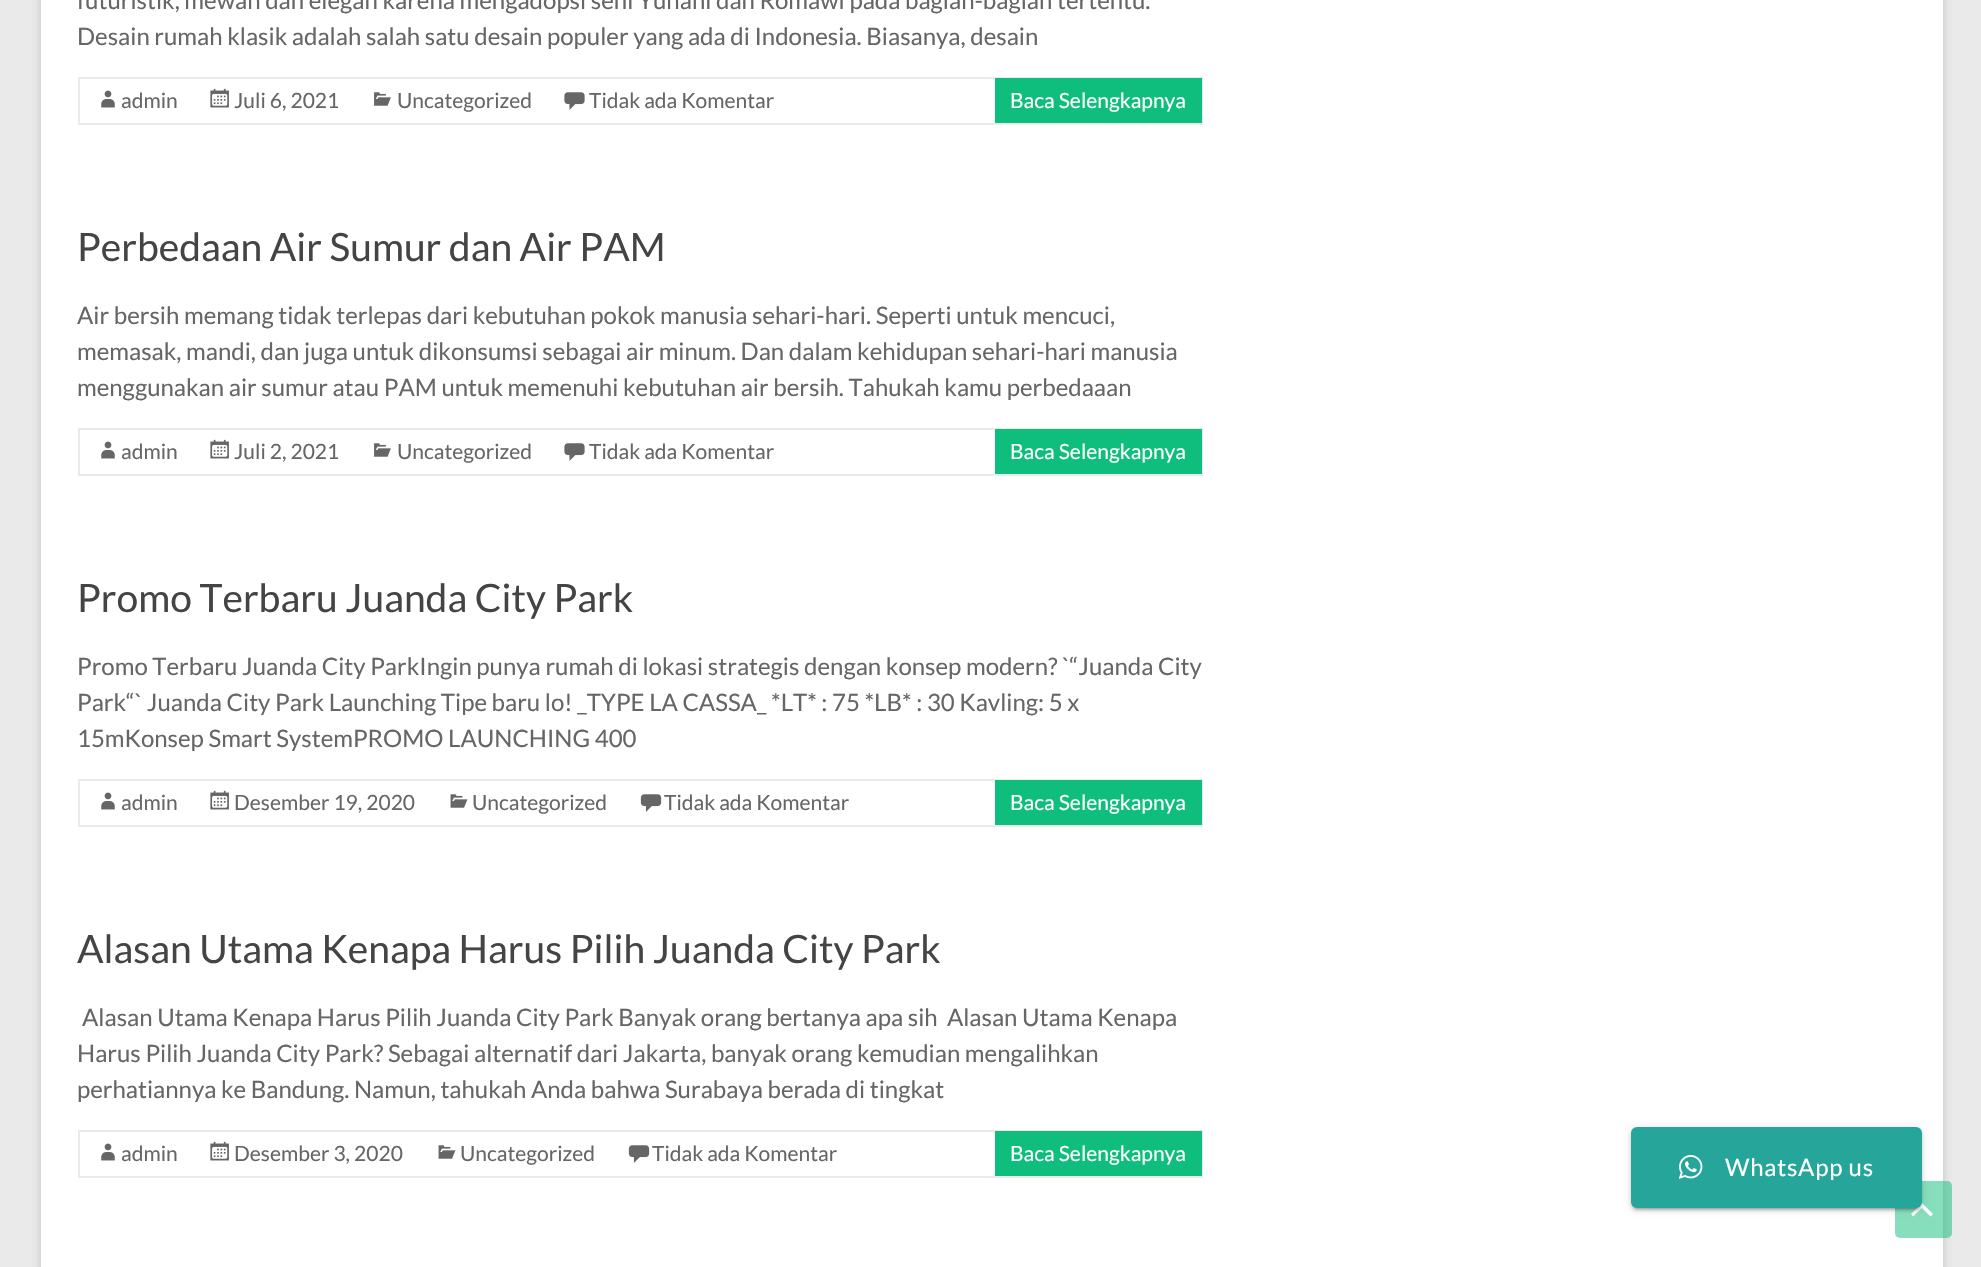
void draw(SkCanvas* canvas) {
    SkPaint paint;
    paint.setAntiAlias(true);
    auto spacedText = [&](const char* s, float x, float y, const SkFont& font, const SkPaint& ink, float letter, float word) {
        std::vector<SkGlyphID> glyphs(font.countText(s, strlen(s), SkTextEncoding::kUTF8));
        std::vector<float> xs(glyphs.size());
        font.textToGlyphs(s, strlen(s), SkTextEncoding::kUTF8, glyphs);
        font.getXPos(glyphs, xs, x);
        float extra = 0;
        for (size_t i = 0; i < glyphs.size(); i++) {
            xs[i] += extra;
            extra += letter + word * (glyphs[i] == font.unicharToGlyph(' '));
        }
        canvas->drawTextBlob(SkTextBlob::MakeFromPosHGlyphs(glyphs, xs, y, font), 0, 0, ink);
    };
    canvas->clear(0xFFEAEAEA);
    paint.setColor(0x4D646464);
    paint.setMaskFilter(SkMaskFilter::MakeBlur(kNormal_SkBlurStyle, 4.5f));
    canvas->drawRect(SkRect::MakeXYWH(41, -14, 1902, 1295), paint);
    paint.setMaskFilter(nullptr);
    paint.setColor(0xFFFFFFFF);
    canvas->drawRect(SkRect::MakeXYWH(41, 0, 1902, 1267), paint);
    SkFont font1(fontMgr->matchFamilyStyle("Lato", SkFontStyle::Normal()), 24);
    font1.setSubpixel(true);
    paint.setColor(0xFF666666);
    canvas->drawString("futuristik, mewah dan elegan karena mengadopsi seni Yunani dan Romawi pada bagian-bagian tertentu.", 77, 9, font1, paint);
    canvas->drawString("Desain rumah klasik adalah salah satu desain populer yang ada di Indonesia. Biasanya, desain", 77, 45, font1, paint);
    paint.setStyle(SkPaint::kStroke_Style);
    paint.setStrokeWidth(2);
    paint.setColor(0xFFEAEAEA);
    canvas->drawRect(SkRect::MakeXYWH(79, 78, 1123, 46), paint);
    canvas->drawImageRect(SkImages::DeferredFromEncodedData(SkData::MakeFromFileName("img1.png")), SkRect::MakeXYWH(101, 90, 14, 18), SkSamplingOptions());
    SkFont font2(fontMgr->matchFamilyStyle("Lato", SkFontStyle::Normal()), 21);
    font2.setSubpixel(true);
    paint.setStyle(SkPaint::kFill_Style);
    paint.setColor(0xFF666666);
    canvas->drawString("admin", 121, 108, font2, paint);
    canvas->drawImageRect(SkImages::DeferredFromEncodedData(SkData::MakeFromFileName("img2.png")), SkRect::MakeXYWH(210, 88, 19, 20), SkSamplingOptions());
    canvas->drawString("Juli 6, 2021", 234, 108, font2, paint);
    canvas->drawImageRect(SkImages::DeferredFromEncodedData(SkData::MakeFromFileName("img3.png")), SkRect::MakeXYWH(374, 92, 17, 14), SkSamplingOptions());
    canvas->drawString("Uncategorized", 397, 108, font2, paint);
    canvas->drawImageRect(SkImages::DeferredFromEncodedData(SkData::MakeFromFileName("img4.png")), SkRect::MakeXYWH(564, 92, 21, 18), SkSamplingOptions());
    canvas->drawString("Tidak ada Komentar", 589, 108, font2, paint);
    paint.setColor(0xFF0FBE7C);
    canvas->drawRect(SkRect::MakeXYWH(995, 78, 207, 45), paint);
    paint.setColor(0xFFFFFFFF);
    canvas->drawString("Baca Selengkapnya", 1010, 108, font2, paint);
    SkFont font3(fontMgr->matchFamilyStyle("Lato", SkFontStyle::Normal()), 39);
    font3.setSubpixel(true);
    paint.setColor(0xFF444444);
    canvas->drawString("Perbedaan Air Sumur dan Air PAM", 77, 261, font3, paint);
    paint.setColor(0xFF666666);
    canvas->drawString("Air bersih memang tidak terlepas dari kebutuhan pokok manusia sehari-hari. Seperti untuk mencuci,", 77, 324, font1, paint);
    canvas->drawString("memasak, mandi, dan juga untuk dikonsumsi sebagai air minum. Dan dalam kehidupan sehari-hari manusia", 77, 360, font1, paint);
    canvas->drawString("menggunakan air sumur atau PAM untuk memenuhi kebutuhan air bersih. Tahukah kamu perbedaaan", 77, 396, font1, paint);
    paint.setStyle(SkPaint::kStroke_Style);
    paint.setColor(0xFFEAEAEA);
    canvas->drawRect(SkRect::MakeXYWH(79, 429, 1123, 46), paint);
    canvas->drawImageRect(SkImages::DeferredFromEncodedData(SkData::MakeFromFileName("img1.png")), SkRect::MakeXYWH(101, 441, 14, 18), SkSamplingOptions());
    paint.setStyle(SkPaint::kFill_Style);
    paint.setColor(0xFF666666);
    canvas->drawString("admin", 121, 459, font2, paint);
    canvas->drawImageRect(SkImages::DeferredFromEncodedData(SkData::MakeFromFileName("img2.png")), SkRect::MakeXYWH(210, 439, 19, 20), SkSamplingOptions());
    canvas->drawString("Juli 2, 2021", 234, 459, font2, paint);
    canvas->drawImageRect(SkImages::DeferredFromEncodedData(SkData::MakeFromFileName("img3.png")), SkRect::MakeXYWH(374, 443, 17, 14), SkSamplingOptions());
    canvas->drawString("Uncategorized", 397, 459, font2, paint);
    canvas->drawImageRect(SkImages::DeferredFromEncodedData(SkData::MakeFromFileName("img4.png")), SkRect::MakeXYWH(564, 443, 21, 18), SkSamplingOptions());
    canvas->drawString("Tidak ada Komentar", 589, 459, font2, paint);
    paint.setColor(0xFF0FBE7C);
    canvas->drawRect(SkRect::MakeXYWH(995, 429, 207, 45), paint);
    paint.setColor(0xFFFFFFFF);
    canvas->drawString("Baca Selengkapnya", 1010, 459, font2, paint);
    paint.setColor(0xFF444444);
    canvas->drawString("Promo Terbaru Juanda City Park", 77, 612, font3, paint);
    paint.setColor(0xFF666666);
    canvas->drawString("Promo Terbaru Juanda City ParkIngin punya rumah di lokasi strategis dengan konsep modern? `“Juanda City", 77, 675, font1, paint);
    canvas->drawString("Park“` Juanda City Park Launching Tipe baru lo! _TYPE LA CASSA_ *LT* : 75 *LB* : 30 Kavling: 5 x", 77, 711, font1, paint);
    canvas->drawString("15mKonsep Smart SystemPROMO LAUNCHING 400", 77, 747, font1, paint);
    paint.setStyle(SkPaint::kStroke_Style);
    paint.setColor(0xFFEAEAEA);
    canvas->drawRect(SkRect::MakeXYWH(79, 780, 1123, 46), paint);
    canvas->drawImageRect(SkImages::DeferredFromEncodedData(SkData::MakeFromFileName("img1.png")), SkRect::MakeXYWH(101, 792, 14, 18), SkSamplingOptions());
    paint.setStyle(SkPaint::kFill_Style);
    paint.setColor(0xFF666666);
    canvas->drawString("admin", 121, 810, font2, paint);
    canvas->drawImageRect(SkImages::DeferredFromEncodedData(SkData::MakeFromFileName("img2.png")), SkRect::MakeXYWH(210, 790, 19, 20), SkSamplingOptions());
    canvas->drawString("Desember 19, 2020", 234, 810, font2, paint);
    canvas->drawImageRect(SkImages::DeferredFromEncodedData(SkData::MakeFromFileName("img5.png")), SkRect::MakeXYWH(450, 794, 18, 14), SkSamplingOptions());
    canvas->drawString("Uncategorized", 472, 810, font2, paint);
    canvas->drawImageRect(SkImages::DeferredFromEncodedData(SkData::MakeFromFileName("img6.png")), SkRect::MakeXYWH(640, 794, 22, 18), SkSamplingOptions());
    canvas->drawString("Tidak ada Komentar", 664, 810, font2, paint);
    paint.setColor(0xFF0FBE7C);
    canvas->drawRect(SkRect::MakeXYWH(995, 780, 207, 45), paint);
    paint.setColor(0xFFFFFFFF);
    canvas->drawString("Baca Selengkapnya", 1010, 810, font2, paint);
    paint.setColor(0xFF444444);
    canvas->drawString("Alasan Utama Kenapa Harus Pilih Juanda City Park", 77, 963, font3, paint);
    paint.setColor(0xFF666666);
    canvas->drawString("Alasan Utama Kenapa Harus Pilih Juanda City Park Banyak orang bertanya apa sih  Alasan Utama Kenapa", 82, 1026, font1, paint);
    canvas->drawString("Harus Pilih Juanda City Park? Sebagai alternatif dari Jakarta, banyak orang kemudian mengalihkan", 77, 1062, font1, paint);
    canvas->drawString("perhatiannya ke Bandung. Namun, tahukah Anda bahwa Surabaya berada di tingkat", 77, 1098, font1, paint);
    paint.setStyle(SkPaint::kStroke_Style);
    paint.setColor(0xFFEAEAEA);
    canvas->drawRect(SkRect::MakeXYWH(79, 1131, 1123, 46), paint);
    canvas->drawImageRect(SkImages::DeferredFromEncodedData(SkData::MakeFromFileName("img1.png")), SkRect::MakeXYWH(101, 1143, 14, 18), SkSamplingOptions());
    paint.setStyle(SkPaint::kFill_Style);
    paint.setColor(0xFF666666);
    canvas->drawString("admin", 121, 1161, font2, paint);
    canvas->drawImageRect(SkImages::DeferredFromEncodedData(SkData::MakeFromFileName("img2.png")), SkRect::MakeXYWH(210, 1141, 19, 20), SkSamplingOptions());
    canvas->drawString("Desember 3, 2020", 234, 1161, font2, paint);
    canvas->drawImageRect(SkImages::DeferredFromEncodedData(SkData::MakeFromFileName("img5.png")), SkRect::MakeXYWH(438, 1145, 18, 14), SkSamplingOptions());
    canvas->drawString("Uncategorized", 460, 1161, font2, paint);
    canvas->drawImageRect(SkImages::DeferredFromEncodedData(SkData::MakeFromFileName("img6.png")), SkRect::MakeXYWH(628, 1145, 22, 18), SkSamplingOptions());
    canvas->drawString("Tidak ada Komentar", 652, 1161, font2, paint);
    paint.setColor(0xFF0FBE7C);
    canvas->drawRect(SkRect::MakeXYWH(995, 1131, 207, 45), paint);
    paint.setColor(0xFFFFFFFF);
    canvas->drawString("Baca Selengkapnya", 1010, 1161, font2, paint);
    paint.setColor(0x800FBE7C);
    canvas->drawRoundRect(SkRect::MakeXYWH(1895, 1181, 57, 57), 5, 5, paint);
    paint.setColor(0xFFFFFFFF);
    canvas->drawPath(SkPathBuilder().moveTo(1930.5f, 1216.5f).lineTo(1922, 1208).lineTo(1913, 1216.5f).lineTo(1911, 1214).lineTo(1922, 1203).lineTo(1933, 1214).close().detach(), paint);
    paint.setColor(0x33000000);
    paint.setMaskFilter(SkMaskFilter::MakeBlur(kNormal_SkBlurStyle, 1));
    canvas->drawRoundRect(SkRect::MakeXYWH(1634, 1134, 285, 75), 3, 3, paint);
    paint.setMaskFilter(nullptr);
    paint.setColor(0x1F000000);
    paint.setMaskFilter(SkMaskFilter::MakeBlur(kNormal_SkBlurStyle, 4));
    canvas->drawRoundRect(SkRect::MakeXYWH(1631, 1128, 291, 81), 6, 6, paint);
    paint.setMaskFilter(nullptr);
    paint.setColor(0x24000000);
    paint.setMaskFilter(SkMaskFilter::MakeBlur(kNormal_SkBlurStyle, 1.5f));
    canvas->drawRoundRect(SkRect::MakeXYWH(1631, 1130, 291, 81), 6, 6, paint);
    paint.setMaskFilter(nullptr);
    paint.setColor(0xFF26A69A);
    canvas->drawRoundRect(SkRect::MakeXYWH(1631, 1127, 291, 81), 6, 6, paint);
    canvas->drawImageRect(SkImages::DeferredFromEncodedData(SkData::MakeFromFileName("img7.png")), SkRect::MakeXYWH(1679, 1155, 24, 24), SkSamplingOptions());
    paint.setColor(0xFFFFFFFF);
    spacedText("WhatsApp us", 1725, 1176, font1, paint, 0.75f, 0);
}
